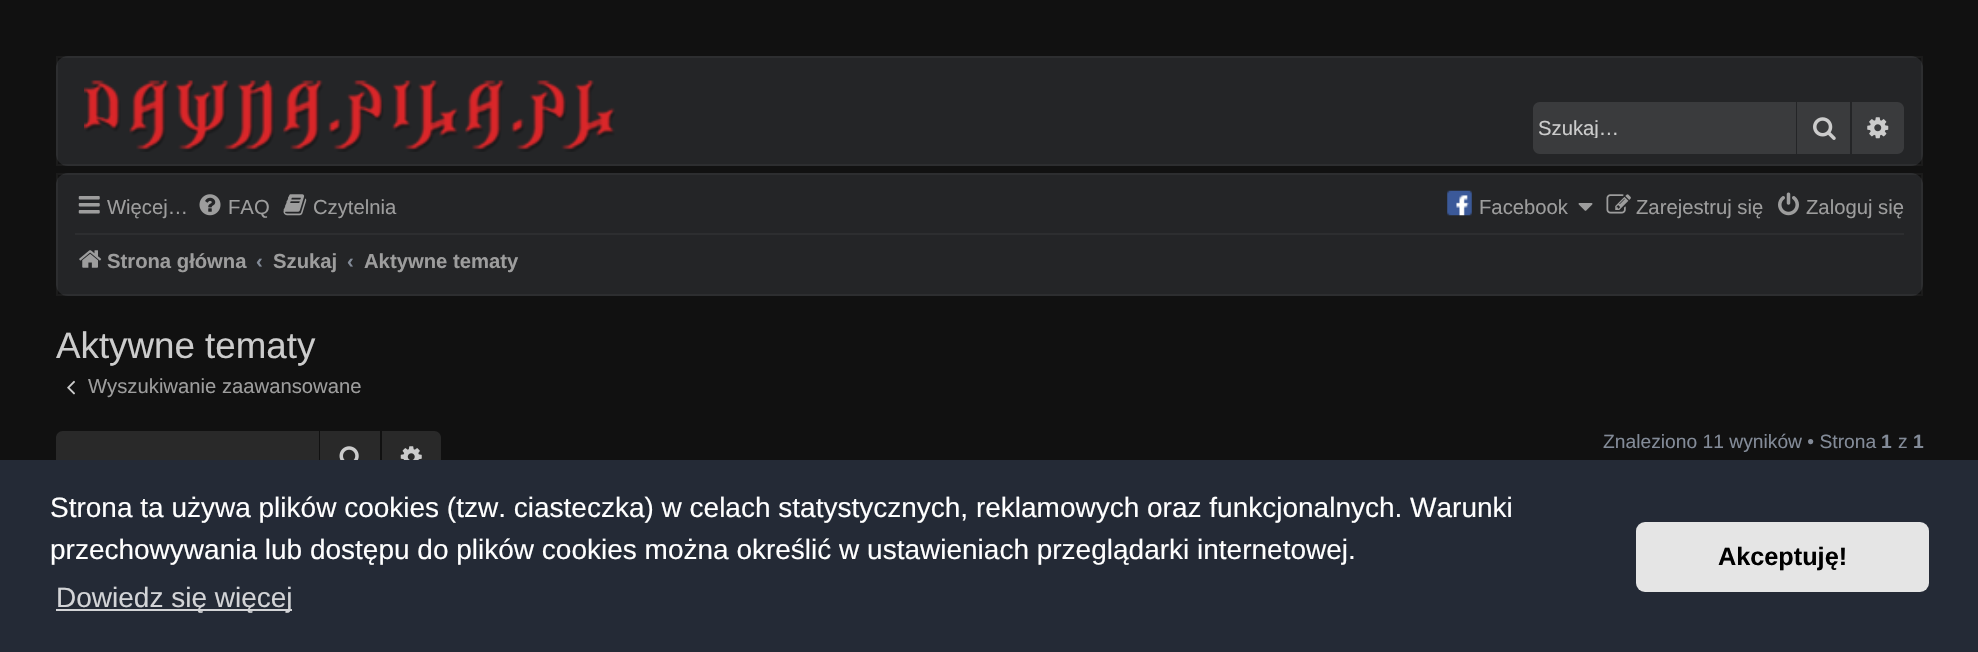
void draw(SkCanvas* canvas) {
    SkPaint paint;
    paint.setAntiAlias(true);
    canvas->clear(0xFF111111);
    paint.setColor(0xFF242527);
    canvas->drawRoundRect(SkRect::MakeXYWH(56, 56, 1867, 110), 12, 12, paint);
    paint.setStyle(SkPaint::kStroke_Style);
    paint.setStrokeWidth(2);
    paint.setColor(0x0AFFFFFF);
    canvas->drawRect(SkRect::MakeXYWH(57, 57, 1865, 108), paint);
    canvas->drawImageRect(SkImages::DeferredFromEncodedData(SkData::MakeFromFileName("img1.png")), SkRect::MakeXYWH(84, 80, 531, 72), SkSamplingOptions());
    paint.setStyle(SkPaint::kFill_Style);
    paint.setColor(0xFF3A3B3D);
    canvas->drawPath(SkPathBuilder().moveTo(1540, 102).lineTo(1796, 102).lineTo(1796, 154).lineTo(1540, 154).cubicTo(1536, 154, 1533, 151, 1533, 147).lineTo(1533, 109).cubicTo(1533, 105, 1536, 102, 1540, 102).close().detach(), paint);
    canvas->save();
    canvas->clipRect(SkRect::MakeXYWH(1538, 117, 245, 21));
    SkFont font1(fontMgr->matchFamilyStyle("Liberation Sans", SkFontStyle::Normal()), 20.25f);
    font1.setSubpixel(true);
    paint.setColor(0xFFCCCCCC);
    canvas->drawString("Szukaj…", 1538, 135, font1, paint);
    canvas->restore();
    paint.setColor(0xFF3A3B3D);
    canvas->drawRect(SkRect::MakeXYWH(1797, 102, 53, 52), paint);
    canvas->drawImageRect(SkImages::DeferredFromEncodedData(SkData::MakeFromFileName("img2.png")), SkRect::MakeXYWH(1813, 117, 23, 23), SkSamplingOptions());
    canvas->drawPath(SkPathBuilder().moveTo(1852, 102).lineTo(1897, 102).cubicTo(1901, 102, 1904, 105, 1904, 109).lineTo(1904, 147).cubicTo(1904, 151, 1901, 154, 1897, 154).lineTo(1852, 154).close().detach(), paint);
    canvas->drawImageRect(SkImages::DeferredFromEncodedData(SkData::MakeFromFileName("img3.png")), SkRect::MakeXYWH(1867, 117, 22, 22), SkSamplingOptions());
    paint.setColor(0xFF242527);
    canvas->drawRoundRect(SkRect::MakeXYWH(56, 173, 1867, 123), 12, 12, paint);
    paint.setStyle(SkPaint::kStroke_Style);
    paint.setColor(0x0AFFFFFF);
    canvas->drawRect(SkRect::MakeXYWH(57, 174, 1865, 121), paint);
    canvas->drawImageRect(SkImages::DeferredFromEncodedData(SkData::MakeFromFileName("img4.png")), SkRect::MakeXYWH(78, 196, 22, 18), SkSamplingOptions());
    paint.setStyle(SkPaint::kFill_Style);
    paint.setColor(0xFF9D9D9D);
    canvas->drawString("Więcej…", 107, 214, font1, paint);
    canvas->drawImageRect(SkImages::DeferredFromEncodedData(SkData::MakeFromFileName("img5.png")), SkRect::MakeXYWH(199, 194, 22, 22), SkSamplingOptions());
    canvas->drawString("FAQ", 228, 214, font1, paint);
    canvas->drawImageRect(SkImages::DeferredFromEncodedData(SkData::MakeFromFileName("img6.png")), SkRect::MakeXYWH(283, 194, 24, 22), SkSamplingOptions());
    canvas->drawString("Czytelnia", 313, 214, font1, paint);
    canvas->drawImageRect(SkImages::DeferredFromEncodedData(SkData::MakeFromFileName("img7.png")), SkRect::MakeXYWH(1447, 190, 25, 26), SkSamplingOptions());
    canvas->drawString("Facebook", 1479, 214, font1, paint);
    canvas->drawImageRect(SkImages::DeferredFromEncodedData(SkData::MakeFromFileName("img8.png")), SkRect::MakeXYWH(1578, 203, 15, 8), SkSamplingOptions());
    canvas->drawImageRect(SkImages::DeferredFromEncodedData(SkData::MakeFromFileName("img9.png")), SkRect::MakeXYWH(1606, 194, 25, 20), SkSamplingOptions());
    canvas->drawString("Zarejestruj się", 1636, 214, font1, paint);
    canvas->drawImageRect(SkImages::DeferredFromEncodedData(SkData::MakeFromFileName("img10.png")), SkRect::MakeXYWH(1778, 192, 21, 24), SkSamplingOptions());
    canvas->drawString("Zaloguj się", 1806, 214, font1, paint);
    paint.setColor(0xFF2D2E30);
    canvas->drawRect(SkRect::MakeXYWH(75, 233, 1829, 2), paint);
    canvas->drawImageRect(SkImages::DeferredFromEncodedData(SkData::MakeFromFileName("img11.png")), SkRect::MakeXYWH(79, 250, 23, 18), SkSamplingOptions());
    SkFont font2(fontMgr->matchFamilyStyle("Liberation Sans", SkFontStyle::Bold()), 20.25f);
    font2.setSubpixel(true);
    paint.setColor(0xFF9D9D9D);
    canvas->drawString("Strona główna", 107, 268, font2, paint);
    paint.setColor(0xFF838B98);
    canvas->drawString("‹", 256, 268, font2, paint);
    paint.setColor(0xFF9D9D9D);
    canvas->drawString("Szukaj", 273, 268, font2, paint);
    paint.setColor(0xFF838B98);
    canvas->drawString("‹", 347, 268, font2, paint);
    paint.setColor(0xFF9D9D9D);
    canvas->drawString("Aktywne tematy", 364, 268, font2, paint);
    SkFont font3(fontMgr->matchFamilyStyle("Liberation Sans", SkFontStyle::Normal()), 36.75f);
    font3.setSubpixel(true);
    paint.setColor(0xFFCCCCCC);
    canvas->drawString("Aktywne tematy", 56, 358, font3, paint);
    canvas->drawImageRect(SkImages::DeferredFromEncodedData(SkData::MakeFromFileName("img12.png")), SkRect::MakeXYWH(67, 380, 8, 15), SkSamplingOptions());
    paint.setColor(0xFF9D9D9D);
    canvas->drawString("Wyszukiwanie zaawansowane", 88, 393, font1, paint);
    paint.setColor(0xFF292929);
    canvas->drawPath(SkPathBuilder().moveTo(63, 431).lineTo(319, 431).lineTo(319, 483).lineTo(63, 483).cubicTo(59, 483, 56, 480, 56, 476).lineTo(56, 438).cubicTo(56, 434, 59, 431, 63, 431).close().detach(), paint);
    canvas->drawRect(SkRect::MakeXYWH(320, 431, 60, 29), paint);
    canvas->drawImageRect(SkImages::DeferredFromEncodedData(SkData::MakeFromFileName("img13.png")), SkRect::MakeXYWH(339, 446, 20, 14), SkSamplingOptions());
    canvas->drawPath(SkPathBuilder().moveTo(382, 431).lineTo(434, 431).cubicTo(438, 431, 441, 434, 441, 438).lineTo(441, 476).cubicTo(441, 480, 438, 483, 434, 483).lineTo(382, 483).close().detach(), paint);
    canvas->drawImageRect(SkImages::DeferredFromEncodedData(SkData::MakeFromFileName("img14.png")), SkRect::MakeXYWH(400, 446, 22, 14), SkSamplingOptions());
    SkFont font4(fontMgr->matchFamilyStyle("Liberation Sans", SkFontStyle::Normal()), 19.25f);
    font4.setSubpixel(true);
    paint.setColor(0xFF838B98);
    canvas->drawString("Znaleziono 11 wyników • Strona", 1603, 448, font4, paint);
    SkFont font5(fontMgr->matchFamilyStyle("Liberation Sans", SkFontStyle::Bold()), 19.25f);
    font5.setSubpixel(true);
    canvas->drawString("1", 1881, 448, font5, paint);
    canvas->drawString("z", 1898, 448, font4, paint);
    canvas->drawString("1", 1913, 448, font5, paint);
    paint.setColor(0xFF242A36);
    canvas->drawRect(SkRect::MakeXYWH(0, 460, 1978, 192), paint);
    SkFont font6(fontMgr->matchFamilyStyle("Liberation Sans", SkFontStyle::Normal()), 28);
    font6.setSubpixel(true);
    paint.setColor(0xFFFFFFFF);
    canvas->drawString("Strona ta używa plików cookies (tzw. ciasteczka) w celach statystycznych, reklamowych oraz funkcjonalnych. Warunki", 50, 517, font6, paint);
    canvas->drawString("przechowywania lub dostępu do plików cookies można określić w ustawieniach przeglądarki internetowej.", 50, 559, font6, paint);
    paint.setColor(0xFFD3D4D7);
    canvas->drawRect(SkRect::MakeXYWH(56, 609, 236, 2), paint);
    canvas->drawString("Dowiedz się więcej", 56, 607, font6, paint);
    paint.setColor(0xFFE5E5E5);
    canvas->drawRoundRect(SkRect::MakeXYWH(1636, 522, 293, 70), 9, 9, paint);
    SkFont font7(fontMgr->matchFamilyStyle("Liberation Sans", SkFontStyle::Bold()), 25.25f);
    font7.setSubpixel(true);
    paint.setColor(0xFF000000);
    canvas->drawString("Akceptuję!", 1718, 565, font7, paint);
}
